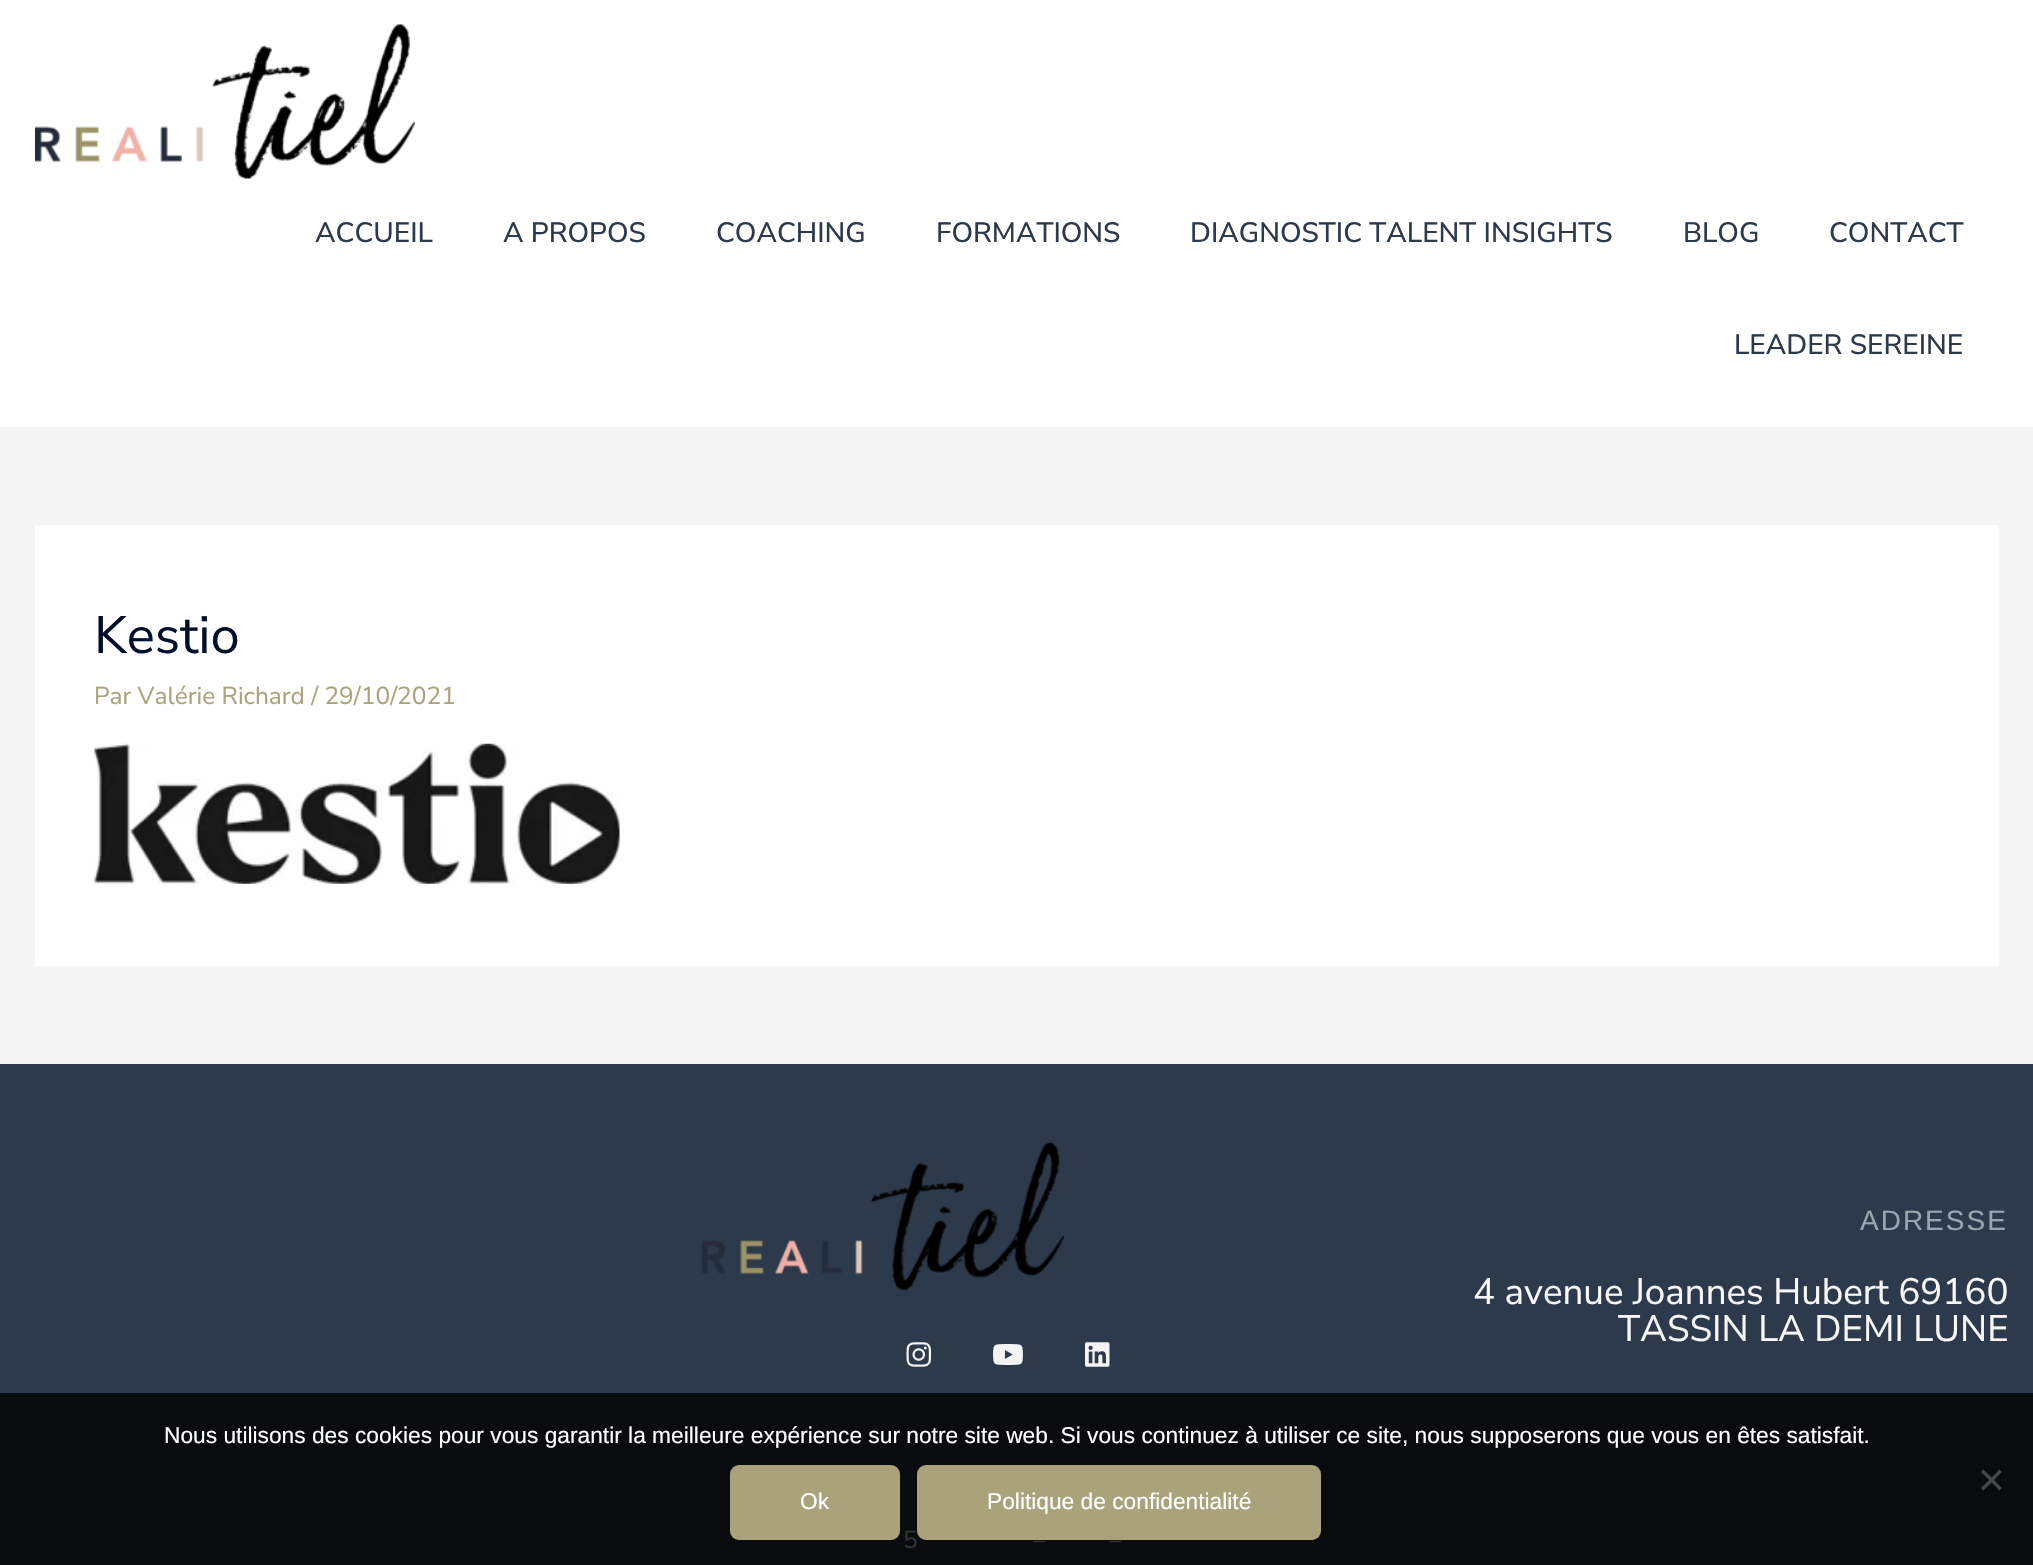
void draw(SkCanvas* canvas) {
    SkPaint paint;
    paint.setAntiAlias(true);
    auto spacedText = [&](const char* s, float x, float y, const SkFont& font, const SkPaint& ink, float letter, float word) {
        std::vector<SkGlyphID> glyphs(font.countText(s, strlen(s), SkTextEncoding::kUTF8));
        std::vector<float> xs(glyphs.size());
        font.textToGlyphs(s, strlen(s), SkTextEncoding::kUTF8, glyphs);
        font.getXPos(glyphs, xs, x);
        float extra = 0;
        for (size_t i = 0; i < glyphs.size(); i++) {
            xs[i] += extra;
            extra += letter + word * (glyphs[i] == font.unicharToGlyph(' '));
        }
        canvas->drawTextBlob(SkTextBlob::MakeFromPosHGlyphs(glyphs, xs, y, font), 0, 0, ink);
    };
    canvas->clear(0xFFF5F5F5);
    paint.setColor(0xFFFFFFFF);
    canvas->drawRect(SkRect::MakeXYWH(0, 0, 2033, 427), paint);
    canvas->drawImageRect(SkImages::DeferredFromEncodedData(SkData::MakeFromFileName("img1.png")), SkRect::MakeXYWH(35, 24, 380, 155), SkSamplingOptions());
    SkFont font1(fontMgr->matchFamilyStyle("Nunito Sans", SkFontStyle(500, SkFontStyle::kNormal_Width, SkFontStyle::kUpright_Slant)), 28);
    font1.setSubpixel(true);
    paint.setColor(0xFF2D3A4B);
    canvas->drawString("ACCUEIL", 315, 242, font1, paint);
    canvas->drawString("A PROPOS", 503, 242, font1, paint);
    canvas->drawString("COACHING", 716, 242, font1, paint);
    canvas->drawString("FORMATIONS", 936, 242, font1, paint);
    canvas->drawString("DIAGNOSTIC TALENT INSIGHTS", 1190, 242, font1, paint);
    canvas->drawString("BLOG", 1683, 242, font1, paint);
    canvas->drawString("CONTACT", 1829, 242, font1, paint);
    canvas->drawString("LEADER SEREINE", 1734, 354, font1, paint);
    paint.setColor(0xFFFFFFFF);
    canvas->drawRect(SkRect::MakeXYWH(35, 525, 1964, 441), paint);
    SkFont font2(fontMgr->matchFamilyStyle("Nunito Sans", SkFontStyle::Normal()), 52.5f);
    font2.setSubpixel(true);
    paint.setColor(0xFF000F2B);
    canvas->drawString("Kestio", 94, 653, font2, paint);
    SkFont font3(fontMgr->matchFamilyStyle("Nunito Sans", SkFontStyle::Normal()), 24.5f);
    font3.setSubpixel(true);
    paint.setColor(0xFFAAA27B);
    canvas->drawString("Par Valérie Richard / 29/10/2021", 94, 704, font3, paint);
    canvas->drawImageRect(SkImages::DeferredFromEncodedData(SkData::MakeFromFileName("img2.png")), SkRect::MakeXYWH(94, 743, 526, 141), SkSamplingOptions());
    paint.setColor(0xFF2D3A4B);
    canvas->drawRect(SkRect::MakeXYWH(0, 1064, 2033, 329), paint);
    paint.setColor(0xFF090C0F);
    canvas->drawRect(SkRect::MakeXYWH(0, 1393, 2033, 172), paint);
    canvas->drawImageRect(SkImages::DeferredFromEncodedData(SkData::MakeFromFileName("img3.png")), SkRect::MakeXYWH(701, 1142, 363, 148), SkSamplingOptions());
    canvas->drawImageRect(SkImages::DeferredFromEncodedData(SkData::MakeFromFileName("img4.png")), SkRect::MakeXYWH(906, 1342, 26, 25), SkSamplingOptions());
    canvas->drawImageRect(SkImages::DeferredFromEncodedData(SkData::MakeFromFileName("img5.png")), SkRect::MakeXYWH(993, 1344, 30, 21), SkSamplingOptions());
    canvas->drawImageRect(SkImages::DeferredFromEncodedData(SkData::MakeFromFileName("img6.png")), SkRect::MakeXYWH(1085, 1342, 25, 25), SkSamplingOptions());
    SkFont font4(fontMgr->matchFamilyStyle("Liberation Sans", SkFontStyle::Normal()), 28);
    font4.setSubpixel(true);
    paint.setColor(0xFF98A7AD);
    spacedText("ADRESSE", 1860, 1230, font4, paint, 2, 0);
    SkFont font5(fontMgr->matchFamilyStyle("Nunito Sans", SkFontStyle::Normal()), 36.75f);
    font5.setSubpixel(true);
    paint.setColor(0xFFF7F7F7);
    canvas->drawString("4 avenue Joannes Hubert 69160", 1473, 1304, font5, paint);
    canvas->drawString("TASSIN LA DEMI LUNE", 1618, 1341, font5, paint);
    paint.setColor(0xFF333333);
    canvas->drawString("5", 903, 1548, font3, paint);
    canvas->drawString("–", 1033, 1548, font3, paint);
    canvas->drawString("–", 1109, 1548, font3, paint);
    SkFont font6(fontMgr->matchFamilyStyle("Liberation Sans", SkFontStyle::Normal()), 22.75f);
    font6.setSubpixel(true);
    paint.setColor(0xFFFFFFFF);
    canvas->drawString("Nous utilisons des cookies pour vous garantir la meilleure expérience sur notre site web. Si vous continuez à utiliser ce site, nous supposerons que vous en êtes satisfait.", 164, 1443, font6, paint);
    paint.setColor(0xFF454648);
    canvas->drawPath(SkPathBuilder().moveTo(1999.5f, 1469.5f).lineTo(2002, 1472).lineTo(1983.5f, 1490.5f).lineTo(1981, 1488).close().detach(), paint);
    canvas->drawPath(SkPathBuilder().moveTo(1981, 1472).lineTo(1983.5f, 1469.5f).lineTo(2002, 1488).lineTo(1999.5f, 1490.5f).close().detach(), paint);
    paint.setColor(0xFFAAA27B);
    canvas->drawRoundRect(SkRect::MakeXYWH(730, 1465, 170, 75), 9, 9, paint);
    paint.setColor(0xFFFFFFFF);
    canvas->drawString("Ok", 800, 1509, font6, paint);
    paint.setColor(0xFFAAA27B);
    canvas->drawRoundRect(SkRect::MakeXYWH(917, 1465, 404, 75), 9, 9, paint);
    paint.setColor(0xFFFFFFFF);
    canvas->drawString("Politique de confidentialité", 987, 1509, font6, paint);
}
